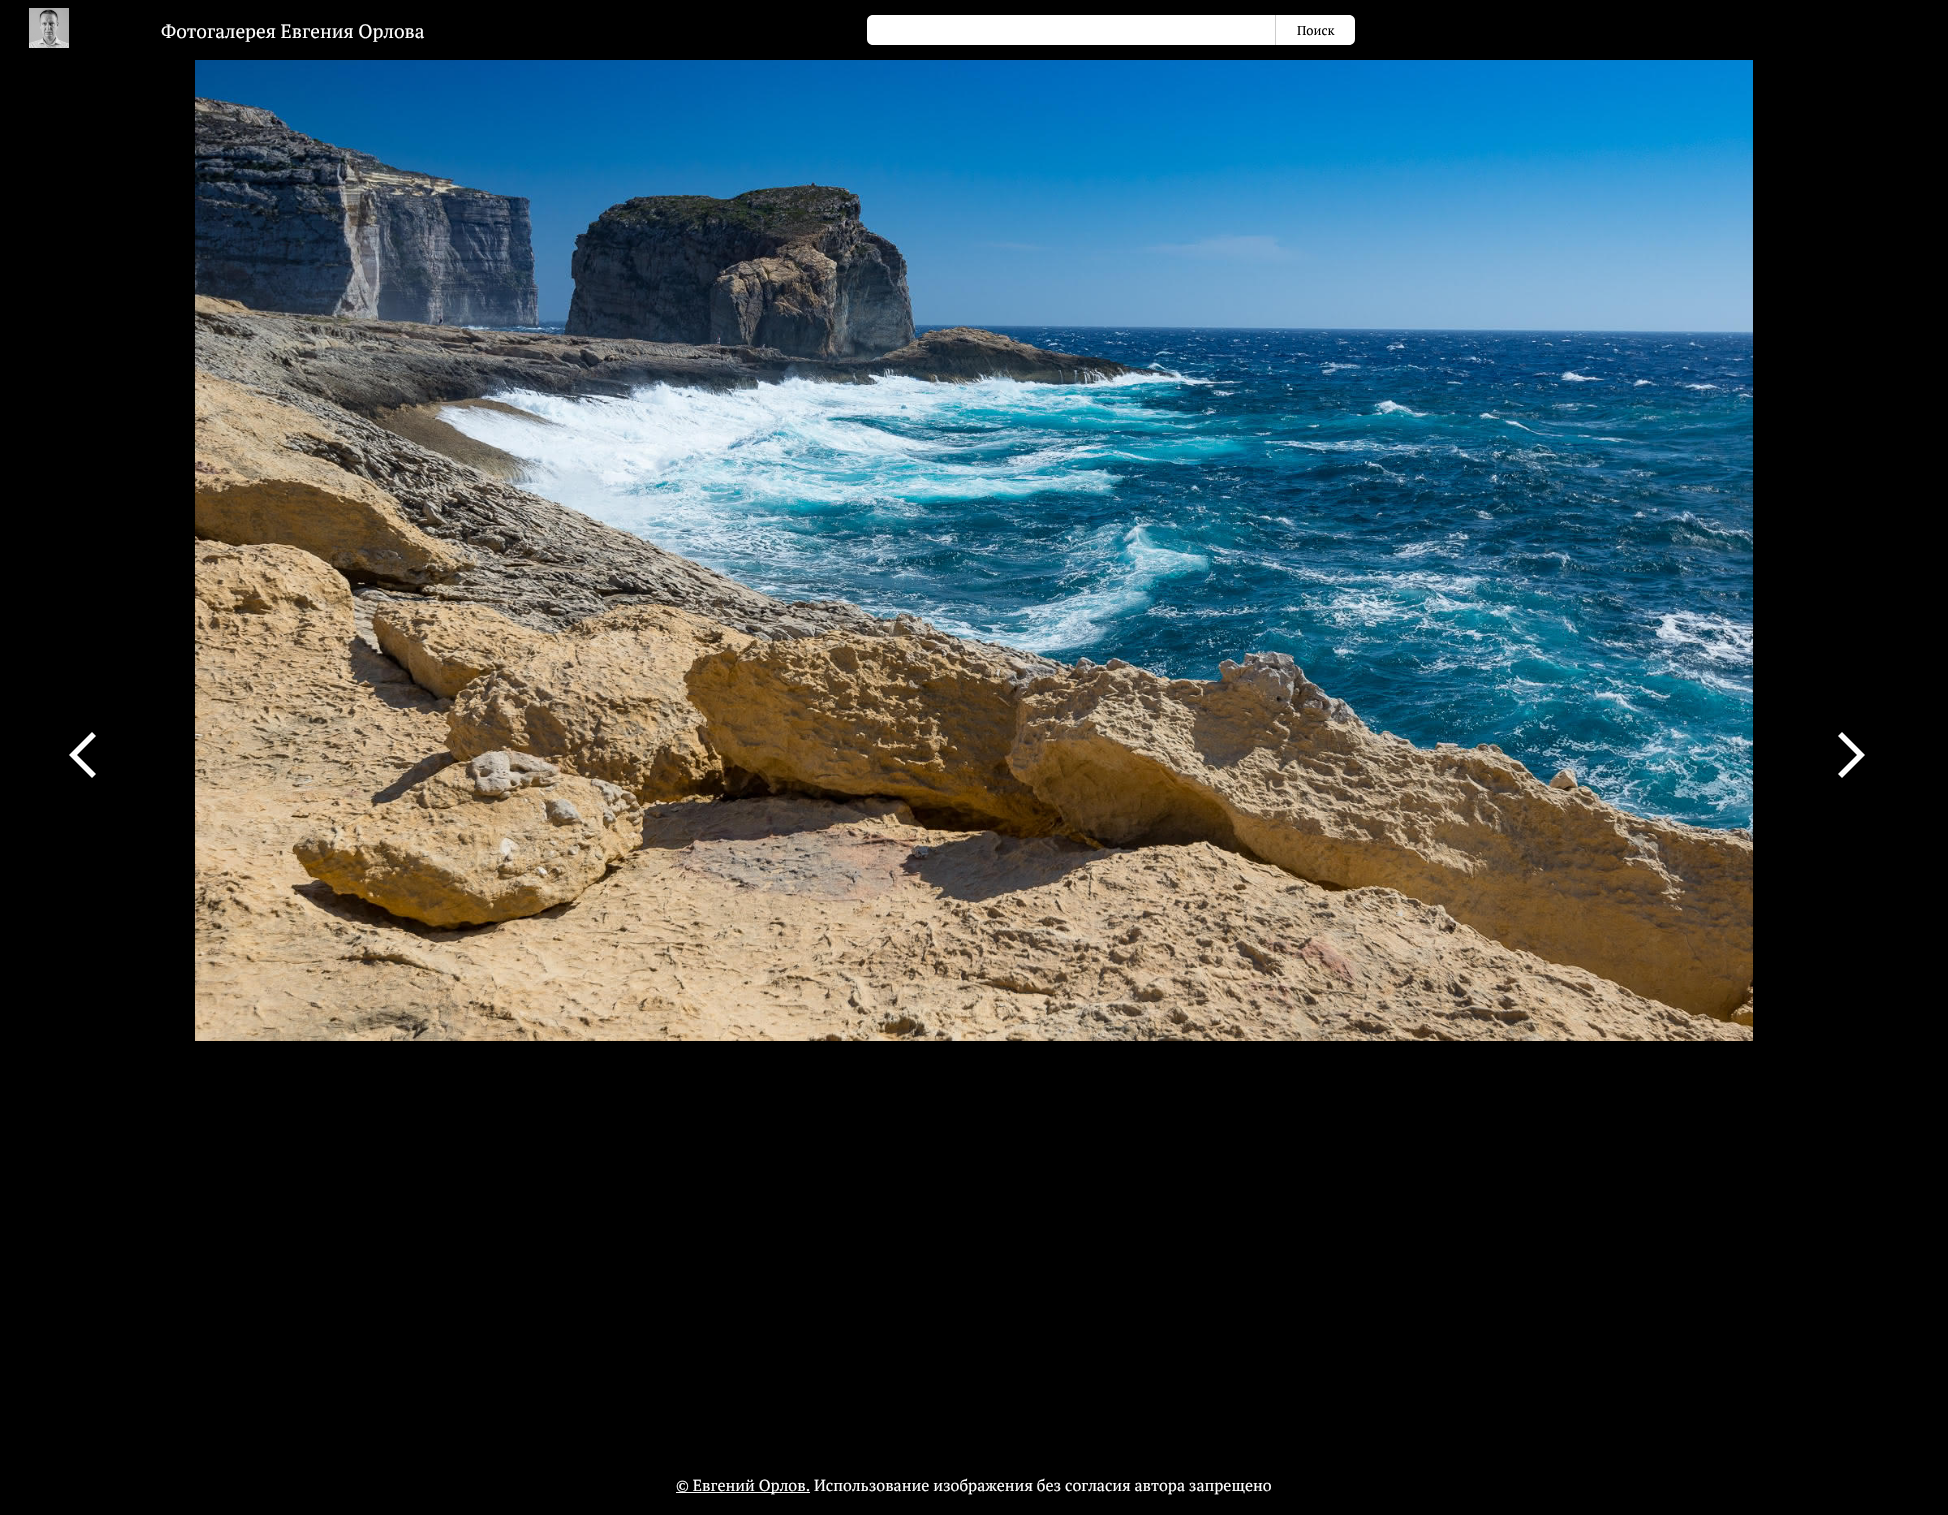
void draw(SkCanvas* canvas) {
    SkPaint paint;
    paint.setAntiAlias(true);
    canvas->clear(0xFF000000);
    canvas->drawImageRect(SkImages::DeferredFromEncodedData(SkData::MakeFromFileName("img1.png")), SkRect::MakeXYWH(29, 8, 40, 40), SkSamplingOptions());
    SkFont font1(fontMgr->matchFamilyStyle("PT Serif", SkFontStyle::Normal()), 19.25f);
    font1.setSubpixel(true);
    paint.setColor(0xFFFFFFFF);
    canvas->drawString("Фотогалерея Евгения Орлова", 161, 38, font1, paint);
    canvas->drawPath(SkPathBuilder().moveTo(873, 15).lineTo(1275, 15).lineTo(1275, 45).lineTo(873, 45).cubicTo(869.5f, 45, 867, 42.5f, 867, 39).lineTo(867, 21).cubicTo(867, 17.5f, 869.5f, 15, 873, 15).close().detach(), paint);
    canvas->drawPath(SkPathBuilder().moveTo(1275, 15).lineTo(1349, 15).cubicTo(1352.5f, 15, 1355, 17.5f, 1355, 21).lineTo(1355, 39).cubicTo(1355, 42.5f, 1352.5f, 45, 1349, 45).lineTo(1275, 45).close().detach(), paint);
    paint.setColor(0xFFCCCCCC);
    canvas->drawRect(SkRect::MakeXYWH(1275, 15, 1, 30), paint);
    SkFont font2(fontMgr->matchFamilyStyle("PT Serif", SkFontStyle::Normal()), 13);
    font2.setSubpixel(true);
    paint.setColor(0xFF000000);
    canvas->drawString("Поиск", 1297, 35, font2, paint);
    paint.setColor(0xFFFFFFFF);
    canvas->drawPath(SkPathBuilder().moveTo(96, 736).lineTo(77, 755).lineTo(96, 774).lineTo(92, 778).lineTo(69, 755).lineTo(92, 732).close().detach(), paint);
    canvas->drawImageRect(SkImages::DeferredFromEncodedData(SkData::MakeFromFileName("img2.png")), SkRect::MakeXYWH(195, 60, 1558, 981), SkSamplingOptions());
    canvas->drawPath(SkPathBuilder().moveTo(1838, 774).lineTo(1842, 778).lineTo(1865, 755).lineTo(1842, 732).lineTo(1838, 736).lineTo(1857, 755).close().detach(), paint);
    canvas->drawRect(SkRect::MakeXYWH(676, 1492, 134, 1), paint);
    SkFont font3(fontMgr->matchFamilyStyle("PT Serif", SkFontStyle::Normal()), 16);
    font3.setSubpixel(true);
    canvas->drawString("© Евгений Орлов. Использование изображения без согласия автора запрещено", 676, 1491, font3, paint);
}
